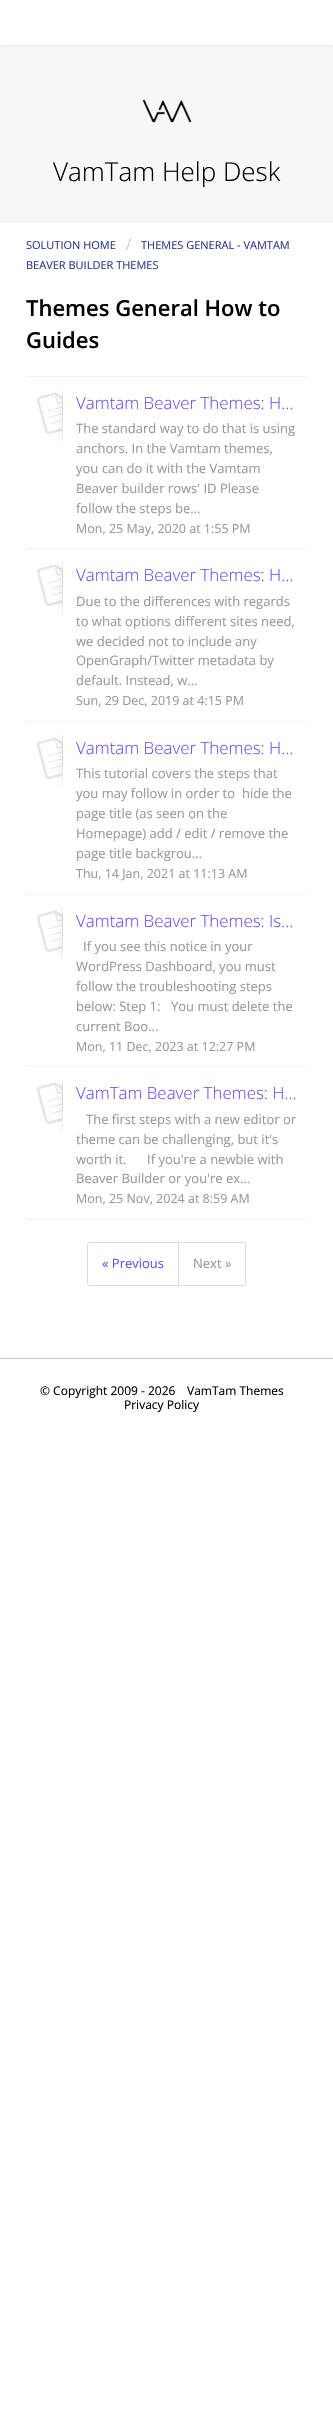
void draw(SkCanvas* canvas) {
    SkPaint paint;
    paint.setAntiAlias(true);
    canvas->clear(0xFFFFFFFF);
    paint.setColor(0xFFF7F7F7);
    canvas->drawRect(SkRect::MakeXYWH(0, 45, 333, 178), paint);
    paint.setColor(0x0A000000);
    paint.setMaskFilter(SkMaskFilter::MakeBlur(kNormal_SkBlurStyle, 1));
    canvas->drawRect(SkRect::MakeXYWH(0, 2, 333, 45), paint);
    paint.setMaskFilter(nullptr);
    paint.setColor(0xFFFFFFFF);
    canvas->drawRect(SkRect::MakeXYWH(0, 1, 333, 44), paint);
    canvas->drawImageRect(SkImages::DeferredFromEncodedData(SkData::MakeFromFileName("img1.png")), SkRect::MakeXYWH(142, 99, 50, 24), SkSamplingOptions());
    SkFont font1(fontMgr->matchFamilyStyle("Open Sans", SkFontStyle(300, SkFontStyle::kNormal_Width, SkFontStyle::kUpright_Slant)), 26);
    font1.setSubpixel(true);
    paint.setColor(0xFF000000);
    canvas->drawString("VamTam Help Desk", 53, 181, font1, paint);
    SkFont font2(fontMgr->matchFamilyStyle("Open Sans", SkFontStyle::Normal()), 11);
    font2.setSubpixel(true);
    paint.setColor(0xFF2C3888);
    canvas->drawString("SOLUTION HOME", 26, 249, font2, paint);
    SkFont font3(fontMgr->matchFamilyStyle("Open Sans", SkFontStyle(300, SkFontStyle::kNormal_Width, SkFontStyle::kUpright_Slant)), 16);
    font3.setSubpixel(true);
    paint.setColor(0xFFBBBBBB);
    canvas->drawString("/", 126, 250, font3, paint);
    paint.setColor(0xFF2C3888);
    canvas->drawString("THEMES GENERAL - VAMTAM", 141, 249, font2, paint);
    canvas->drawString("BEAVER BUILDER THEMES", 26, 269, font2, paint);
    SkFont font4(fontMgr->matchFamilyStyle("Open Sans", SkFontStyle(600, SkFontStyle::kNormal_Width, SkFontStyle::kUpright_Slant)), 22);
    font4.setSubpixel(true);
    paint.setColor(0xFF000000);
    canvas->drawString("Themes General How to", 26, 316, font4, paint);
    canvas->drawString("Guides", 26, 348, font4, paint);
    paint.setColor(0xFFF3F3F3);
    canvas->drawRect(SkRect::MakeXYWH(26, 1219, 281, 1), paint);
    canvas->drawRect(SkRect::MakeXYWH(26, 376, 281, 1), paint);
    canvas->drawImageRect(SkImages::DeferredFromEncodedData(SkData::MakeFromFileName("img2.png")), SkRect::MakeXYWH(37, 389, 26, 54), SkSamplingOptions());
    SkFont font5(fontMgr->matchFamilyStyle("Open Sans", SkFontStyle(300, SkFontStyle::kNormal_Width, SkFontStyle::kUpright_Slant)), 16.9f);
    font5.setSubpixel(true);
    paint.setColor(0xFF6A51F2);
    canvas->drawString("Vamtam Beaver Themes: H…", 76, 409, font5, paint);
    SkFont font6(fontMgr->matchFamilyStyle("Open Sans", SkFontStyle::Normal()), 13);
    font6.setSubpixel(true);
    paint.setColor(0xFF999999);
    canvas->drawString("The standard way to do that is using", 76, 433, font6, paint);
    canvas->drawString("anchors. In the Vamtam themes,", 76, 453, font6, paint);
    canvas->drawString("you can do it with the Vamtam", 76, 473, font6, paint);
    canvas->drawString("Beaver builder rows' ID Please", 76, 493, font6, paint);
    canvas->drawString("follow the steps be...", 76, 513, font6, paint);
    SkFont font7(fontMgr->matchFamilyStyle("Open Sans", SkFontStyle::Normal()), 12.5f);
    font7.setSubpixel(true);
    canvas->drawString("Mon, 25 May, 2020 at 1:55 PM", 76, 533, font7, paint);
    paint.setColor(0xFFF3F3F3);
    canvas->drawRect(SkRect::MakeXYWH(26, 548, 281, 1), paint);
    canvas->drawImageRect(SkImages::DeferredFromEncodedData(SkData::MakeFromFileName("img2.png")), SkRect::MakeXYWH(37, 561, 26, 54), SkSamplingOptions());
    paint.setColor(0xFF6A51F2);
    canvas->drawString("Vamtam Beaver Themes: H…", 76, 581, font5, paint);
    paint.setColor(0xFF999999);
    canvas->drawString("Due to the differences with regards", 76, 606, font6, paint);
    canvas->drawString("to what options different sites need,", 76, 626, font6, paint);
    canvas->drawString("we decided not to include any", 76, 646, font6, paint);
    canvas->drawString("OpenGraph/Twitter metadata by", 76, 665, font6, paint);
    canvas->drawString("default. Instead, w...", 76, 685, font6, paint);
    canvas->drawString("Sun, 29 Dec, 2019 at 4:15 PM", 76, 705, font7, paint);
    paint.setColor(0xFFF3F3F3);
    canvas->drawRect(SkRect::MakeXYWH(26, 721, 281, 1), paint);
    canvas->drawImageRect(SkImages::DeferredFromEncodedData(SkData::MakeFromFileName("img2.png")), SkRect::MakeXYWH(37, 734, 26, 54), SkSamplingOptions());
    paint.setColor(0xFF6A51F2);
    canvas->drawString("Vamtam Beaver Themes: H…", 76, 754, font5, paint);
    paint.setColor(0xFF999999);
    canvas->drawString("This tutorial covers the steps that", 76, 778, font6, paint);
    canvas->drawString("you may follow in order to", 76, 798, font6, paint);
    canvas->drawString("hide the", 242, 798, font6, paint);
    canvas->drawString("page title (as seen on the", 76, 818, font6, paint);
    canvas->drawString("Homepage) add / edit / remove the", 76, 838, font6, paint);
    canvas->drawString("page title backgrou...", 76, 858, font6, paint);
    canvas->drawString("Thu, 14 Jan, 2021 at 11:13 AM", 76, 878, font7, paint);
    paint.setColor(0xFFF3F3F3);
    canvas->drawRect(SkRect::MakeXYWH(26, 894, 281, 1), paint);
    canvas->drawImageRect(SkImages::DeferredFromEncodedData(SkData::MakeFromFileName("img2.png")), SkRect::MakeXYWH(37, 907, 26, 54), SkSamplingOptions());
    paint.setColor(0xFF6A51F2);
    canvas->drawString("Vamtam Beaver Themes: Is…", 76, 927, font5, paint);
    paint.setColor(0xFF999999);
    canvas->drawString("If you see this notice in your", 83, 951, font6, paint);
    canvas->drawString("WordPress Dashboard, you must", 76, 971, font6, paint);
    canvas->drawString("follow the troubleshooting steps", 76, 991, font6, paint);
    canvas->drawString("below: Step 1:", 76, 1011, font6, paint);
    canvas->drawString("You must delete the", 171, 1011, font6, paint);
    canvas->drawString("current Boo...", 76, 1031, font6, paint);
    canvas->drawString("Mon, 11 Dec, 2023 at 12:27 PM", 76, 1051, font7, paint);
    paint.setColor(0xFFF3F3F3);
    canvas->drawRect(SkRect::MakeXYWH(26, 1066, 281, 1), paint);
    canvas->drawImageRect(SkImages::DeferredFromEncodedData(SkData::MakeFromFileName("img2.png")), SkRect::MakeXYWH(37, 1079, 26, 54), SkSamplingOptions());
    paint.setColor(0xFF6A51F2);
    canvas->drawString("VamTam Beaver Themes: H…", 76, 1099, font5, paint);
    paint.setColor(0xFF999999);
    canvas->drawString("The first steps with a new editor or", 86, 1124, font6, paint);
    canvas->drawString("theme can be challenging, but it's", 76, 1144, font6, paint);
    canvas->drawString("worth it.", 76, 1164, font6, paint);
    canvas->drawString("If you're a newbie with", 147, 1164, font6, paint);
    canvas->drawString("Beaver Builder or you're ex...", 76, 1183, font6, paint);
    canvas->drawString("Mon, 25 Nov, 2024 at 8:59 AM", 76, 1203, font7, paint);
    paint.setStyle(SkPaint::kStroke_Style);
    paint.setStrokeWidth(1);
    paint.setColor(0xFFDDDDDD);
    canvas->drawPath(SkPathBuilder().moveTo(90, 1242.5f).lineTo(178.5f, 1242.5f).lineTo(178.5f, 1285.5f).lineTo(90, 1285.5f).cubicTo(88.5f, 1285.5f, 87.5f, 1284.5f, 87.5f, 1283).lineTo(87.5f, 1245).cubicTo(87.5f, 1243.5f, 88.5f, 1242.5f, 90, 1242.5f).close().detach(), paint);
    paint.setStyle(SkPaint::kFill_Style);
    paint.setColor(0xFF6A51F2);
    canvas->drawString("« Previous", 102, 1268, font6, paint);
    paint.setColor(0xFFDDDDDD);
    canvas->drawPath(SkPathBuilder(SkPathFillType::kEvenOdd).moveTo(179, 1242).lineTo(243, 1242).cubicTo(245, 1242, 246, 1243, 246, 1245).lineTo(246, 1283).cubicTo(246, 1285, 245, 1286, 243, 1286).lineTo(179, 1286).close().moveTo(179, 1243).lineTo(243, 1243).cubicTo(244, 1243, 245, 1244, 245, 1245).lineTo(245, 1283).cubicTo(245, 1284, 244, 1285, 243, 1285).lineTo(179, 1285).close().detach(), paint);
    paint.setColor(0xFF999999);
    canvas->drawString("Next »", 193, 1268, font6, paint);
    paint.setColor(0xFFCCCCCC);
    canvas->drawRect(SkRect::MakeXYWH(0, 1358, 333, 1), paint);
    SkFont font8(fontMgr->matchFamilyStyle("Open Sans", SkFontStyle::Normal()), 12);
    font8.setSubpixel(true);
    paint.setColor(0xFF000000);
    canvas->drawString("© Copyright 2009 - 2026", 40, 1395, font8, paint);
    canvas->drawString("VamTam Themes", 187, 1395, font8, paint);
    canvas->drawString("Privacy Policy", 124, 1409, font8, paint);
}
